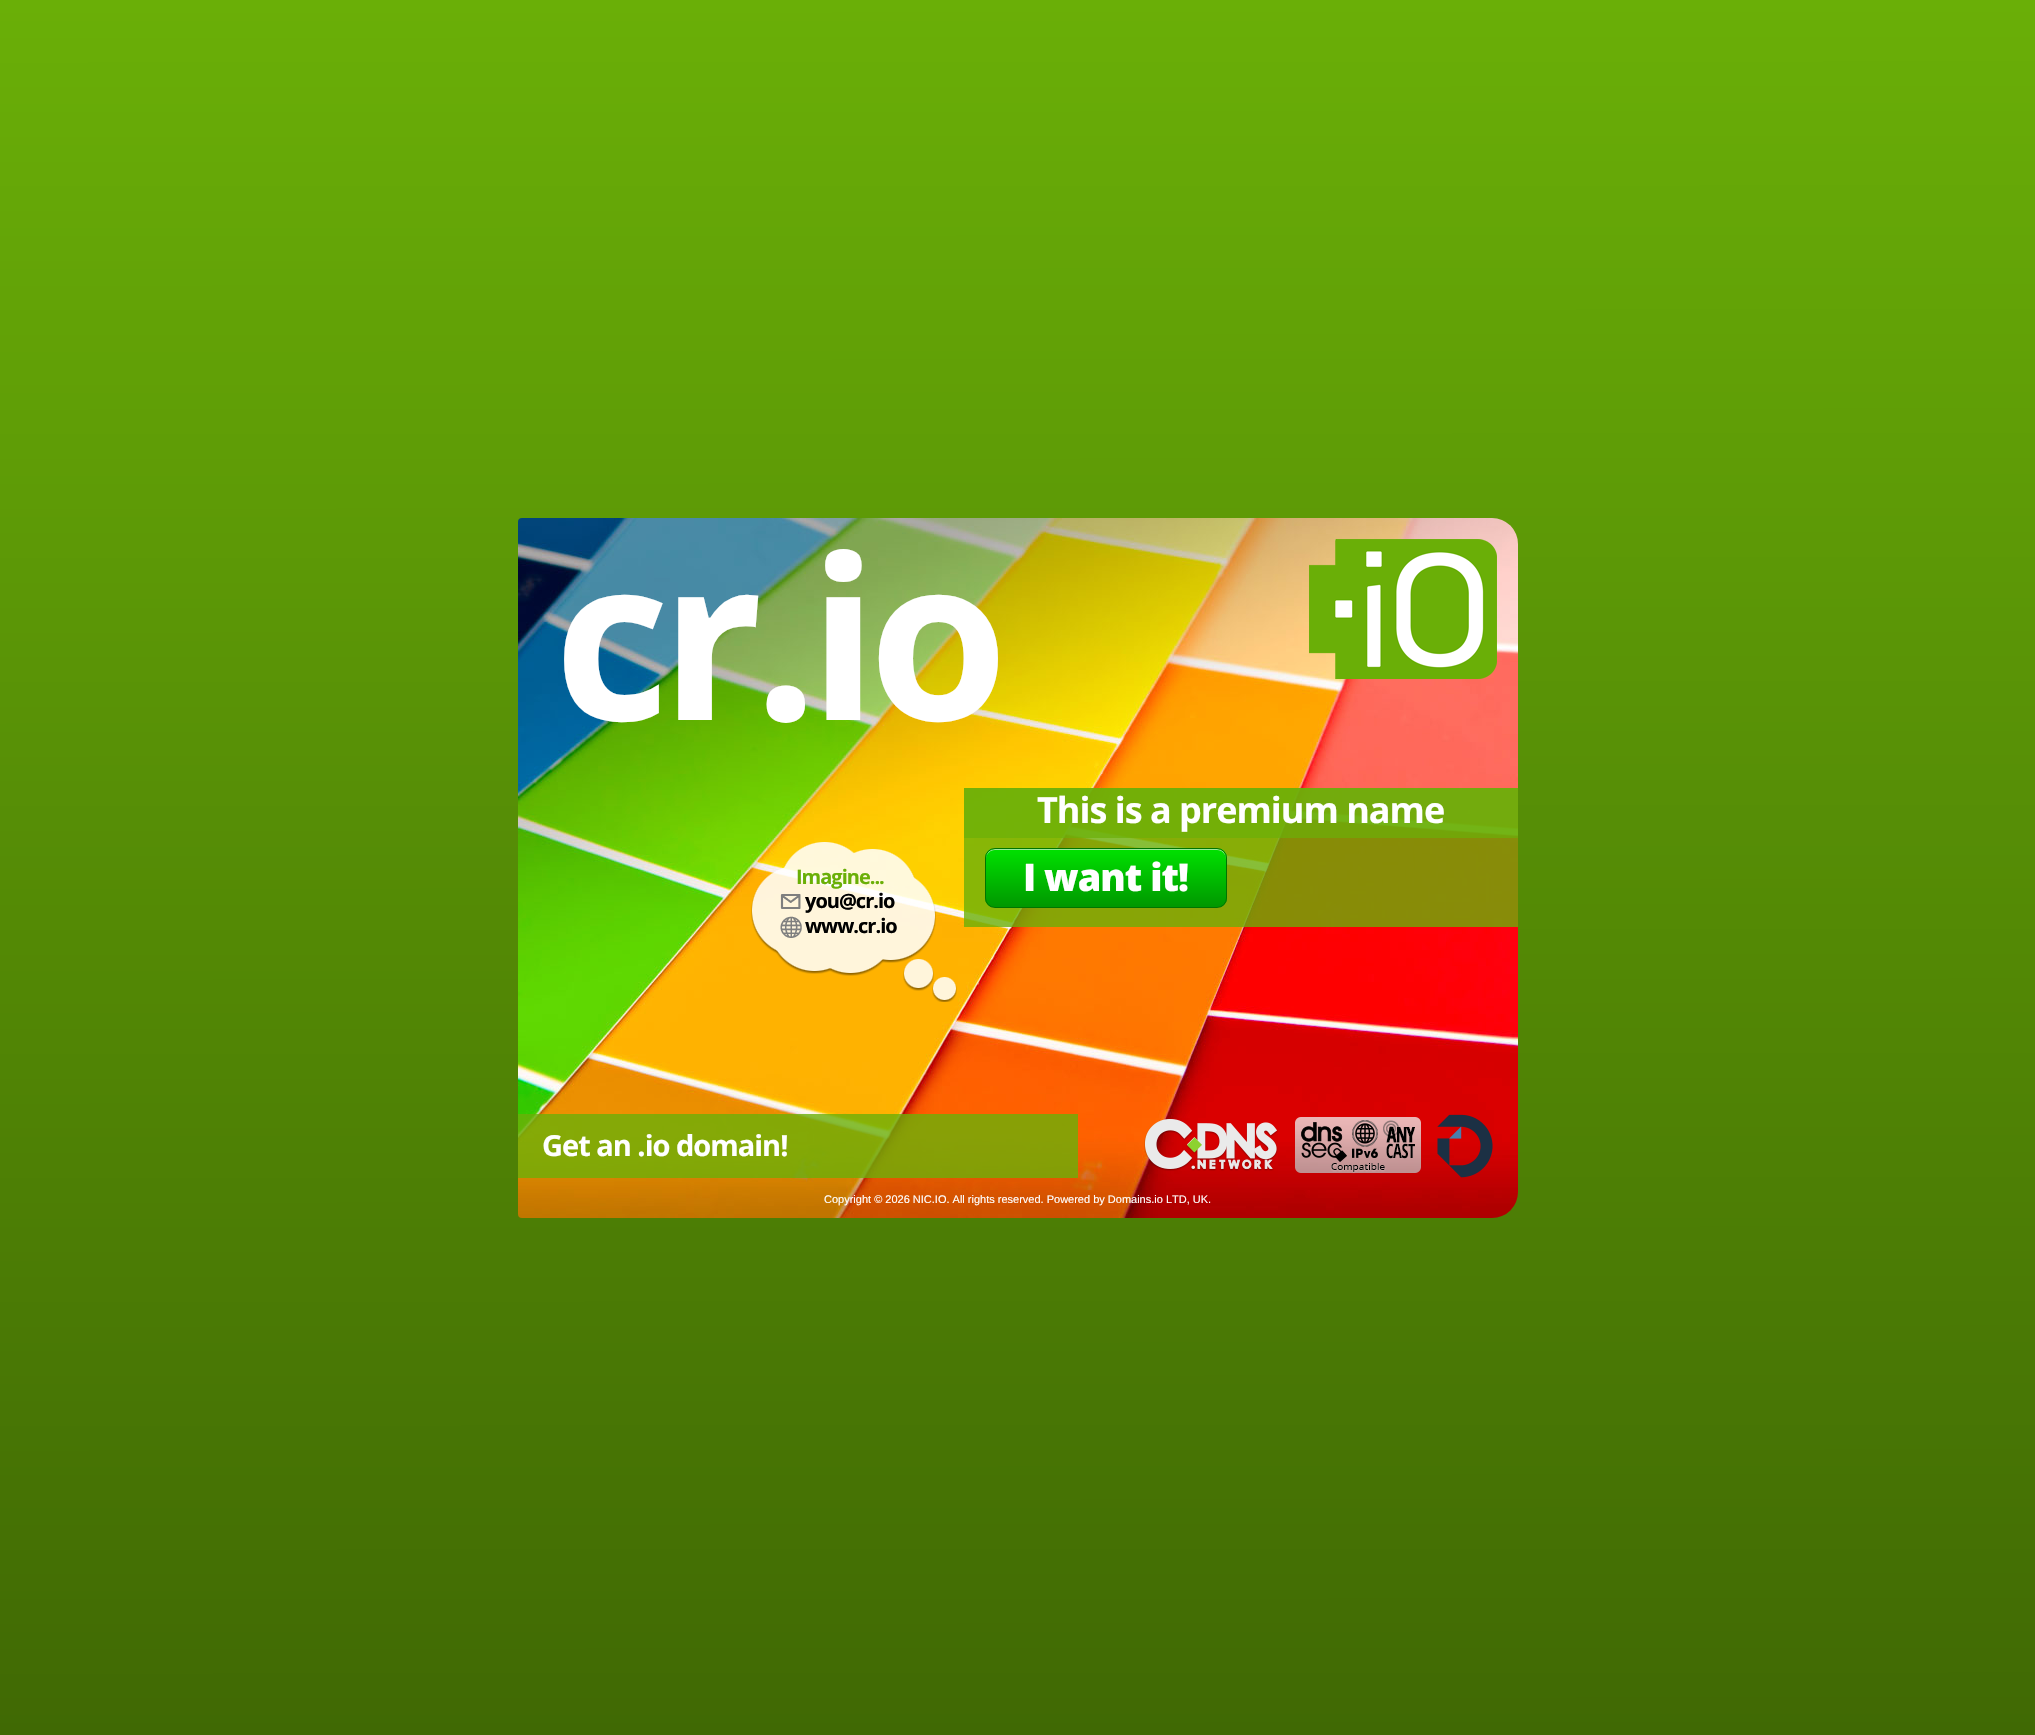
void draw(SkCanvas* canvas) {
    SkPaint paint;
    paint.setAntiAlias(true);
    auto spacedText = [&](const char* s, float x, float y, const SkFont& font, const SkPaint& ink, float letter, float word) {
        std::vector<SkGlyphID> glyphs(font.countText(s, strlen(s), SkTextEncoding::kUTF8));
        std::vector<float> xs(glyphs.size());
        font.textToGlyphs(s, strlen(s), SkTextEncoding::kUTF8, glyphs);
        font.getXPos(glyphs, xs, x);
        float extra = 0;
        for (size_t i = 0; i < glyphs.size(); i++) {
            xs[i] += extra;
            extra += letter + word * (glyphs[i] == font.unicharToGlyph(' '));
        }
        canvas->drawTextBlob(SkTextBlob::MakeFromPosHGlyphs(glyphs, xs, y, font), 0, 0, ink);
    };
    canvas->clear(0xFFFFFFFF);
    {
        const SkColor colors[] = {0xFF6AAF07, 0xFF406904};
        const float stops[] = {0, 1};
        const SkPoint ends[] = {{1017, 0}, {1018, 1735}};
        paint.setShader(SkGradientShader::MakeLinear(ends, colors, stops, 2, SkTileMode::kClamp));
        paint.setAlpha(255);
    }
    canvas->drawRect(SkRect::MakeXYWH(0, 0, 2035, 1735), paint);
    canvas->drawImageRect(SkImages::DeferredFromEncodedData(SkData::MakeFromFileName("img1.png")), SkRect::MakeXYWH(518, 518, 1000, 700), SkSamplingOptions());
    SkFont font1(fontMgr->matchFamilyStyle("Open Sans", SkFontStyle::Bold()), 225);
    font1.setSubpixel(true);
    paint.setShader(nullptr);
    paint.setColor(0xFFFFFFFF);
    spacedText("cr.io", 554, 720, font1, paint, -9, 0);
    canvas->drawImageRect(SkImages::DeferredFromEncodedData(SkData::MakeFromFileName("img2.png")), SkRect::MakeXYWH(1309, 539, 188, 140), SkSamplingOptions());
    paint.setColor(0xCC6AAF07);
    canvas->drawRect(SkRect::MakeXYWH(964, 788, 554, 139), paint);
    paint.setColor(0xB36AAF07);
    canvas->drawRect(SkRect::MakeXYWH(964, 788, 554, 50), paint);
    SkFont font2(fontMgr->matchFamilyStyle("Open Sans", SkFontStyle::Bold()), 36);
    font2.setSubpixel(true);
    paint.setColor(0xFFFFFFFF);
    spacedText("This is a premium name", 1037, 823, font2, paint, -1, 0);
    canvas->save();
    canvas->clipPath(SkPathBuilder().moveTo(995, 848).lineTo(1217, 848).cubicTo(1222.5f, 848, 1227, 852.5f, 1227, 858).lineTo(1227, 898).cubicTo(1227, 903.5f, 1222.5f, 908, 1217, 908).lineTo(995, 908).cubicTo(989.5f, 908, 985, 903.5f, 985, 898).lineTo(985, 858).cubicTo(985, 852.5f, 989.5f, 848, 995, 848).close().detach(), true);
    {
        const SkColor colors[] = {0xFF00DE00, 0xFF009700};
        const float stops[] = {0.05f, 1};
        const SkPoint ends[] = {{986, 849}, {986, 907}};
        paint.setShader(SkGradientShader::MakeLinear(ends, colors, stops, 2, SkTileMode::kClamp));
        paint.setAlpha(255);
    }
    canvas->drawRect(SkRect::MakeXYWH(985, 849, 242, 58), paint);
    canvas->restore();
    paint.setShader(nullptr);
    paint.setColor(0xFF9BEB9B);
    canvas->drawPath(SkPathBuilder().moveTo(995, 850).lineTo(1217, 850).cubicTo(1222, 850, 1226, 854, 1226, 859).lineTo(1226, 858).cubicTo(1226, 853, 1222, 849, 1217, 849).lineTo(995, 849).cubicTo(990, 849, 986, 853, 986, 858).lineTo(986, 859).cubicTo(986, 854, 990, 850, 995, 850).close().detach(), paint);
    paint.setStyle(SkPaint::kStroke_Style);
    paint.setStrokeWidth(1);
    paint.setColor(0xFF007500);
    canvas->drawRoundRect(SkRect::MakeXYWH(985.5f, 848.5f, 241, 59), 9.5f, 9.5f, paint);
    SkFont font3(fontMgr->matchFamilyStyle("Open Sans", SkFontStyle(800, SkFontStyle::kNormal_Width, SkFontStyle::kUpright_Slant)), 38);
    font3.setSubpixel(true);
    paint.setStyle(SkPaint::kFill_Style);
    paint.setColor(0xFFFFFFFF);
    spacedText("I want it!", 1023, 891, font3, paint, -1, 0);
    canvas->drawImageRect(SkImages::DeferredFromEncodedData(SkData::MakeFromFileName("img3.png")), SkRect::MakeXYWH(751, 842, 206, 160), SkSamplingOptions());
    SkFont font4(fontMgr->matchFamilyStyle("Open Sans", SkFontStyle::Bold()), 20);
    font4.setSubpixel(true);
    paint.setColor(0xFF6AAF07);
    spacedText("Imagine...", 796, 884, font4, paint, -1, 0);
    canvas->drawImageRect(SkImages::DeferredFromEncodedData(SkData::MakeFromFileName("img4.png")), SkRect::MakeXYWH(780, 894, 21, 15), SkSamplingOptions());
    paint.setColor(0xFF000000);
    spacedText("you@cr.io", 805, 908, font4, paint, -1, 0);
    canvas->drawImageRect(SkImages::DeferredFromEncodedData(SkData::MakeFromFileName("img5.png")), SkRect::MakeXYWH(780, 916, 22, 22), SkSamplingOptions());
    spacedText("www.cr.io", 805, 933, font4, paint, -1, 0);
    paint.setColor(0xCC6AAF07);
    canvas->drawRect(SkRect::MakeXYWH(518, 1114, 560, 64), paint);
    SkFont font5(fontMgr->matchFamilyStyle("Open Sans", SkFontStyle::Bold()), 29);
    font5.setSubpixel(true);
    paint.setColor(0xFFFFFFFF);
    spacedText("Get an .io domain!", 542, 1156, font5, paint, -1, 0);
    canvas->drawImageRect(SkImages::DeferredFromEncodedData(SkData::MakeFromFileName("img6.png")), SkRect::MakeXYWH(1144, 1119, 134, 52), SkSamplingOptions());
    canvas->drawImageRect(SkImages::DeferredFromEncodedData(SkData::MakeFromFileName("img7.png")), SkRect::MakeXYWH(1295, 1117, 126, 57), SkSamplingOptions());
    canvas->drawImageRect(SkImages::DeferredFromEncodedData(SkData::MakeFromFileName("img8.png")), SkRect::MakeXYWH(1437, 1114, 56, 64), SkSamplingOptions());
    SkFont font6(fontMgr->matchFamilyStyle("Liberation Sans", SkFontStyle::Normal()), 11);
    font6.setSubpixel(true);
    canvas->drawString("Copyright © 2026 NIC.IO. All rights reserved. Powered by Domains.io LTD, UK.", 824, 1203, font6, paint);
}
